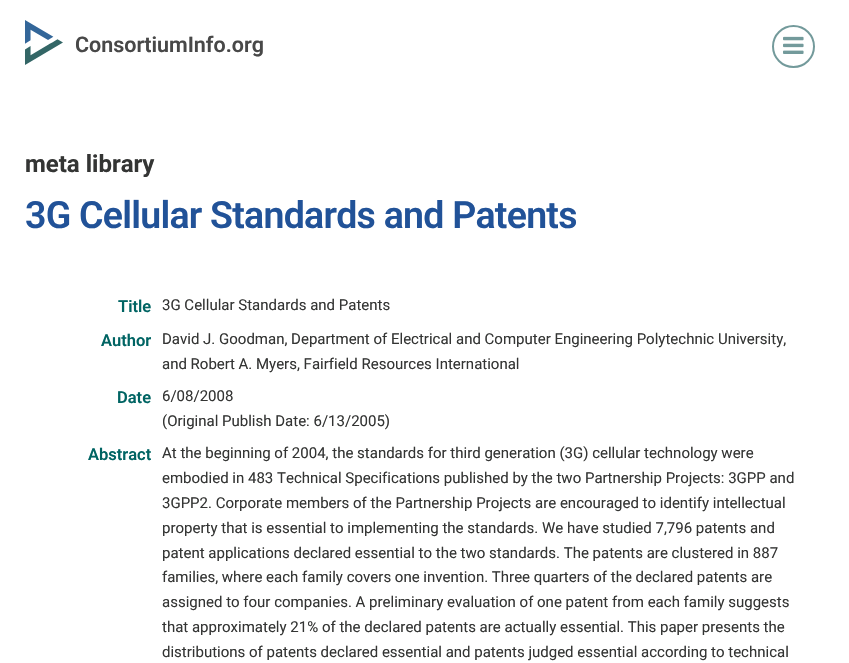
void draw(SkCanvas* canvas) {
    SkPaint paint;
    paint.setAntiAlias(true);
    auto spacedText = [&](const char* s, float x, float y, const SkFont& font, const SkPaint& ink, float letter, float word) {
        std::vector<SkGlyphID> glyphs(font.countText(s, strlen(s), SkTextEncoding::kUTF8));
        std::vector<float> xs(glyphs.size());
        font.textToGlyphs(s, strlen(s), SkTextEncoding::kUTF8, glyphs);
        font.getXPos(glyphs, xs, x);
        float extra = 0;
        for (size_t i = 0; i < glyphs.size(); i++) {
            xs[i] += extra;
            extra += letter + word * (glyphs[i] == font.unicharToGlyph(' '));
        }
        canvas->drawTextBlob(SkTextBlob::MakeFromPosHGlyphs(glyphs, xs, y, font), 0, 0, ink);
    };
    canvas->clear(0xFFFFFFFF);
    canvas->drawImageRect(SkImages::DeferredFromEncodedData(SkData::MakeFromFileName("img1.png")), SkRect::MakeXYWH(25, 20, 38, 45), SkSamplingOptions());
    SkFont font1(fontMgr->matchFamilyStyle("Roboto", SkFontStyle(600, SkFontStyle::kNormal_Width, SkFontStyle::kUpright_Slant)), 21.5f);
    font1.setSubpixel(true);
    paint.setColor(0xFF484848);
    canvas->drawString("ConsortiumInfo.org", 75, 52, font1, paint);
    paint.setStyle(SkPaint::kStroke_Style);
    paint.setStrokeWidth(2);
    paint.setColor(0xFF739A9B);
    canvas->drawCircle(793.5f, 46.5f, 20.5f, paint);
    canvas->drawImageRect(SkImages::DeferredFromEncodedData(SkData::MakeFromFileName("img2.png")), SkRect::MakeXYWH(783, 36, 21, 18), SkSamplingOptions());
    SkFont font2(fontMgr->matchFamilyStyle("Roboto", SkFontStyle::Bold()), 24);
    font2.setSubpixel(true);
    paint.setStyle(SkPaint::kFill_Style);
    paint.setColor(0xFF343534);
    canvas->drawString("meta library", 25, 172, font2, paint);
    SkFont font3(fontMgr->matchFamilyStyle("Roboto", SkFontStyle(600, SkFontStyle::kNormal_Width, SkFontStyle::kUpright_Slant)), 37.5f);
    font3.setSubpixel(true);
    paint.setColor(0xFF215298);
    spacedText("3G Cellular Standards and Patents", 25, 228, font3, paint, -0.75f, 0);
    SkFont font4(fontMgr->matchFamilyStyle("Roboto", SkFontStyle(600, SkFontStyle::kNormal_Width, SkFontStyle::kUpright_Slant)), 16.5f);
    font4.setSubpixel(true);
    paint.setColor(0xFF006463);
    canvas->drawString("Title", 118, 312, font4, paint);
    SkFont font5(fontMgr->matchFamilyStyle("Roboto", SkFontStyle::Normal()), 15);
    font5.setSubpixel(true);
    paint.setColor(0xFF343534);
    canvas->drawString("3G Cellular Standards and Patents", 162, 310, font5, paint);
    paint.setColor(0xFF006463);
    canvas->drawString("Author", 101, 346, font4, paint);
    paint.setColor(0xFF343534);
    canvas->drawString("David J. Goodman, Department of Electrical and Computer Engineering Polytechnic University,", 162, 344, font5, paint);
    canvas->drawString("and Robert A. Myers, Fairfield Resources International", 162, 369, font5, paint);
    paint.setColor(0xFF006463);
    canvas->drawString("Date", 117, 403, font4, paint);
    paint.setColor(0xFF343534);
    canvas->drawString("6/08/2008", 162, 401, font5, paint);
    canvas->drawString("(Original Publish Date: 6/13/2005)", 162, 426, font5, paint);
    paint.setColor(0xFF006463);
    canvas->drawString("Abstract", 88, 460, font4, paint);
    paint.setColor(0xFF343534);
    canvas->drawString("At the beginning of 2004, the standards for third generation (3G) cellular technology were", 162, 458, font5, paint);
    canvas->drawString("embodied in 483 Technical Specifications published by the two Partnership Projects: 3GPP and", 162, 483, font5, paint);
    canvas->drawString("3GPP2. Corporate members of the Partnership Projects are encouraged to identify intellectual", 162, 508, font5, paint);
    canvas->drawString("property that is essential to implementing the standards. We have studied 7,796 patents and", 162, 533, font5, paint);
    canvas->drawString("patent applications declared essential to the two standards. The patents are clustered in 887", 162, 558, font5, paint);
    canvas->drawString("families, where each family covers one invention. Three quarters of the declared patents are", 162, 582, font5, paint);
    canvas->drawString("assigned to four companies. A preliminary evaluation of one patent from each family suggests", 162, 607, font5, paint);
    canvas->drawString("that approximately 21% of the declared patents are actually essential. This paper presents the", 162, 632, font5, paint);
    canvas->drawString("distributions of patents declared essential and patents judged essential according to technical", 162, 657, font5, paint);
}
